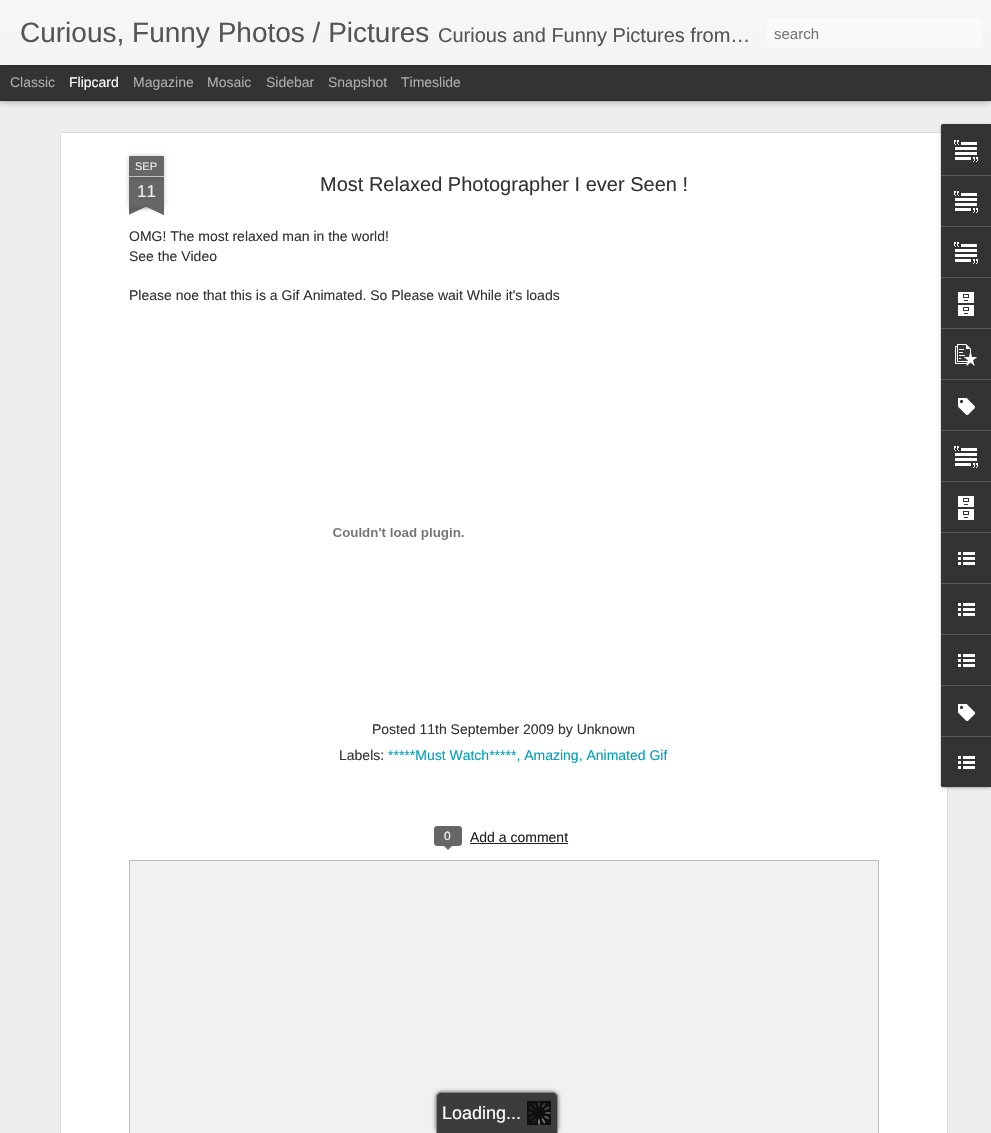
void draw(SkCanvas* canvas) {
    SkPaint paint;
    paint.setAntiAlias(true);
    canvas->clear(0xFF333333);
    paint.setColor(0xFFEEEEEE);
    canvas->drawRect(SkRect::MakeXYWH(0, 101, 991, 1032), paint);
    paint.setColor(0x80000000);
    paint.setMaskFilter(SkMaskFilter::MakeBlur(kNormal_SkBlurStyle, 4));
    canvas->drawRect(SkRect::MakeXYWH(0, 65, 991, 35), paint);
    paint.setMaskFilter(nullptr);
    paint.setColor(0xFF333333);
    canvas->drawRect(SkRect::MakeXYWH(0, 65, 991, 35), paint);
    paint.setColor(0x4D000000);
    paint.setMaskFilter(SkMaskFilter::MakeBlur(kNormal_SkBlurStyle, 2.5f));
    canvas->drawRect(SkRect::MakeXYWH(0, 0, 991, 65), paint);
    paint.setMaskFilter(nullptr);
    {
        const SkColor colors[] = {0xFFF7F7F7, 0xFFF4F4F4};
        const float stops[] = {0, 1};
        const SkPoint ends[] = {{0, 0}, {0, 65}};
        paint.setShader(SkGradientShader::MakeLinear(ends, colors, stops, 2, SkTileMode::kClamp));
        paint.setAlpha(255);
    }
    canvas->drawRect(SkRect::MakeXYWH(0, 0, 991, 65), paint);
    SkFont font1(fontMgr->matchFamilyStyle("Liberation Sans", SkFontStyle::Normal()), 28);
    font1.setSubpixel(true);
    paint.setShader(nullptr);
    paint.setColor(0xFF555555);
    canvas->drawString("Curious, Funny Photos / Pictures", 20, 42, font1, paint);
    SkFont font2(fontMgr->matchFamilyStyle("Liberation Sans", SkFontStyle::Normal()), 20);
    font2.setSubpixel(true);
    canvas->drawString("Curious and Funny Pictures from…", 438, 42, font2, paint);
    paint.setColor(0xFFFAFAFA);
    canvas->drawRoundRect(SkRect::MakeXYWH(767, 18, 214, 30), 3, 3, paint);
    SkFont font3(fontMgr->matchFamilyStyle("Liberation Sans", SkFontStyle::Normal()), 15);
    font3.setSubpixel(true);
    paint.setColor(0xFF757575);
    canvas->drawString("search", 774, 39, font3, paint);
    SkFont font4(fontMgr->matchFamilyStyle("Liberation Sans", SkFontStyle::Normal()), 14);
    font4.setSubpixel(true);
    paint.setColor(0xFFADADAD);
    canvas->drawString("Classic", 10, 87, font4, paint);
    paint.setColor(0xFFFFFFFF);
    canvas->drawString("Flipcard", 69, 87, font4, paint);
    paint.setColor(0xFFADADAD);
    canvas->drawString("Magazine", 133, 87, font4, paint);
    canvas->drawString("Mosaic", 207, 87, font4, paint);
    canvas->drawString("Sidebar", 266, 87, font4, paint);
    canvas->drawString("Snapshot", 328, 87, font4, paint);
    canvas->drawString("Timeslide", 401, 87, font4, paint);
    paint.setColor(0xFFFFFFFF);
    canvas->drawRect(SkRect::MakeXYWH(59, 131, 890, 1002), paint);
    canvas->drawImageRect(SkImages::DeferredFromEncodedData(SkData::MakeFromFileName("img1.png")), SkRect::MakeXYWH(59, 131, 890, 1002), SkSamplingOptions());
    paint.setColor(0x33000000);
    paint.setMaskFilter(SkMaskFilter::MakeBlur(kNormal_SkBlurStyle, 2.5f));
    canvas->drawRect(SkRect::MakeXYWH(129, 177, 35, 30), paint);
    paint.setMaskFilter(nullptr);
    paint.setColor(0xFF666666);
    canvas->drawRect(SkRect::MakeXYWH(129, 177, 35, 30), paint);
    paint.setColor(0x33000000);
    paint.setMaskFilter(SkMaskFilter::MakeBlur(kNormal_SkBlurStyle, 2.5f));
    canvas->drawRoundRect(SkRect::MakeXYWH(129, 156, 35, 21), 1, 1, paint);
    paint.setMaskFilter(nullptr);
    paint.setColor(0xFF666666);
    canvas->drawPath(SkPathBuilder().moveTo(130, 156).lineTo(163, 156).cubicTo(163.5f, 156, 164, 156.5f, 164, 157).lineTo(164, 177).lineTo(129, 177).lineTo(129, 157).cubicTo(129, 156.5f, 129.5f, 156, 130, 156).close().detach(), paint);
    paint.setColor(0xFFC2C2C2);
    canvas->drawRect(SkRect::MakeXYWH(129, 176, 35, 1), paint);
    SkFont font5(fontMgr->matchFamilyStyle("Liberation Sans", SkFontStyle::Normal()), 11);
    font5.setSubpixel(true);
    paint.setColor(0xFFEEEEEE);
    canvas->drawString("SEP", 135, 170, font5, paint);
    SkFont font6(fontMgr->matchFamilyStyle("Liberation Sans", SkFontStyle::Normal()), 17);
    font6.setSubpixel(true);
    canvas->drawString("11", 137, 197, font6, paint);
    canvas->save();
    canvas->clipRect(SkRect::MakeXYWH(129, 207, 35, 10));
    paint.setColor(0x33000000);
    paint.setMaskFilter(SkMaskFilter::MakeBlur(kNormal_SkBlurStyle, 2.5f));
    canvas->drawRect(SkRect::MakeXYWH(120, 197, 50, 10), paint);
    paint.setMaskFilter(nullptr);
    canvas->restore();
    canvas->save();
    canvas->clipRect(SkRect::MakeXYWH(129, 207, 35, 10));
    paint.setColor(0xFF666666);
    canvas->drawPath(SkPathBuilder().moveTo(120, 208).lineTo(165, 187).lineTo(169, 196).lineTo(124, 217).close().detach(), paint);
    canvas->restore();
    canvas->save();
    canvas->clipRect(SkRect::MakeXYWH(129, 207, 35, 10));
    paint.setColor(0x33000000);
    paint.setMaskFilter(SkMaskFilter::MakeBlur(kNormal_SkBlurStyle, 2.5f));
    canvas->drawRect(SkRect::MakeXYWH(123, 197, 50, 10), paint);
    paint.setMaskFilter(nullptr);
    canvas->restore();
    canvas->save();
    canvas->clipRect(SkRect::MakeXYWH(129, 207, 35, 10));
    paint.setColor(0xFF666666);
    canvas->drawPath(SkPathBuilder().moveTo(127, 187).lineTo(172, 208).lineTo(168, 217).lineTo(123, 196).close().detach(), paint);
    canvas->restore();
    paint.setColor(0xFF333333);
    canvas->drawString("Most Relaxed Photographer I ever Seen !", 320, 191, font2, paint);
    canvas->drawString("OMG! The most relaxed man in the world!", 129, 241, font4, paint);
    canvas->drawString("See the Video", 129, 261, font4, paint);
    canvas->drawString("Please noe that this is a Gif Animated. So Please wait While it's loads", 129, 300, font4, paint);
    canvas->drawImageRect(SkImages::DeferredFromEncodedData(SkData::MakeFromFileName("img2.png")), SkRect::MakeXYWH(333, 528, 131, 12), SkSamplingOptions());
    canvas->drawString("Posted 11th September 2009 by Unknown", 372, 734, font4, paint);
    canvas->drawString("Labels:", 339, 760, font4, paint);
    paint.setColor(0xFF009EB8);
    canvas->drawString("*****Must Watch*****, Amazing, Animated Gif", 388, 760, font4, paint);
    paint.setColor(0xFF666666);
    canvas->drawRoundRect(SkRect::MakeXYWH(434.5f, 826.5f, 27, 19), 2.5f, 2.5f, paint);
    paint.setStyle(SkPaint::kStroke_Style);
    paint.setStrokeWidth(1);
    canvas->drawRoundRect(SkRect::MakeXYWH(434.5f, 826.5f, 27, 19), 2.5f, 2.5f, paint);
    SkFont font7(fontMgr->matchFamilyStyle("Liberation Sans", SkFontStyle::Normal()), 12);
    font7.setSubpixel(true);
    paint.setStyle(SkPaint::kFill_Style);
    paint.setColor(0xFFFFFFFF);
    canvas->drawString("0", 444, 840, font7, paint);
    paint.setColor(0xFF666666);
    canvas->drawPath(SkPathBuilder().moveTo(443, 845).lineTo(453, 845).lineTo(448, 850).close().detach(), paint);
    paint.setColor(0xFF222222);
    canvas->drawString("Add a comment", 470, 842, font4, paint);
    canvas->drawRect(SkRect::MakeXYWH(470, 843, 98, 1), paint);
    paint.setColor(0xFFF1F1F1);
    canvas->drawRect(SkRect::MakeXYWH(129.5f, 860.5f, 749, 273), paint);
    paint.setStyle(SkPaint::kStroke_Style);
    paint.setColor(0xFFBBBBBB);
    canvas->drawRect(SkRect::MakeXYWH(129.5f, 860.5f, 749, 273), paint);
    paint.setStyle(SkPaint::kFill_Style);
    paint.setColor(0x4D000000);
    paint.setMaskFilter(SkMaskFilter::MakeBlur(kNormal_SkBlurStyle, 1.5f));
    canvas->drawRoundRect(SkRect::MakeXYWH(941, 125, 50, 663), 2, 2, paint);
    paint.setMaskFilter(nullptr);
    paint.setColor(0xFF333333);
    canvas->drawPath(SkPathBuilder().moveTo(943, 124).lineTo(991, 124).lineTo(991, 787).lineTo(943, 787).cubicTo(942, 787, 941, 786, 941, 785).lineTo(941, 126).cubicTo(941, 125, 942, 124, 943, 124).close().detach(), paint);
    canvas->drawPath(SkPathBuilder().moveTo(943, 124).lineTo(991, 124).lineTo(991, 175).lineTo(941, 175).lineTo(941, 126).cubicTo(941, 125, 942, 124, 943, 124).close().detach(), paint);
    canvas->drawImageRect(SkImages::DeferredFromEncodedData(SkData::MakeFromFileName("img3.png")), SkRect::MakeXYWH(954, 140, 24, 22), SkSamplingOptions());
    paint.setColor(0xFF585858);
    canvas->drawRect(SkRect::MakeXYWH(941, 175, 50, 1), paint);
    canvas->drawImageRect(SkImages::DeferredFromEncodedData(SkData::MakeFromFileName("img3.png")), SkRect::MakeXYWH(954, 191, 24, 22), SkSamplingOptions());
    canvas->drawRect(SkRect::MakeXYWH(941, 226, 50, 1), paint);
    canvas->drawImageRect(SkImages::DeferredFromEncodedData(SkData::MakeFromFileName("img3.png")), SkRect::MakeXYWH(954, 242, 24, 22), SkSamplingOptions());
    canvas->drawRect(SkRect::MakeXYWH(941, 277, 50, 1), paint);
    canvas->drawImageRect(SkImages::DeferredFromEncodedData(SkData::MakeFromFileName("img4.png")), SkRect::MakeXYWH(958, 292, 16, 24), SkSamplingOptions());
    canvas->drawRect(SkRect::MakeXYWH(941, 328, 50, 1), paint);
    canvas->drawImageRect(SkImages::DeferredFromEncodedData(SkData::MakeFromFileName("img5.png")), SkRect::MakeXYWH(955, 344, 22, 22), SkSamplingOptions());
    canvas->drawRect(SkRect::MakeXYWH(941, 379, 50, 1), paint);
    canvas->drawImageRect(SkImages::DeferredFromEncodedData(SkData::MakeFromFileName("img6.png")), SkRect::MakeXYWH(958, 398, 17, 17), SkSamplingOptions());
    canvas->drawRect(SkRect::MakeXYWH(941, 430, 50, 1), paint);
    canvas->drawImageRect(SkImages::DeferredFromEncodedData(SkData::MakeFromFileName("img3.png")), SkRect::MakeXYWH(954, 446, 24, 22), SkSamplingOptions());
    canvas->drawRect(SkRect::MakeXYWH(941, 481, 50, 1), paint);
    canvas->drawImageRect(SkImages::DeferredFromEncodedData(SkData::MakeFromFileName("img4.png")), SkRect::MakeXYWH(958, 496, 16, 24), SkSamplingOptions());
    canvas->drawRect(SkRect::MakeXYWH(941, 532, 50, 1), paint);
    canvas->drawImageRect(SkImages::DeferredFromEncodedData(SkData::MakeFromFileName("img7.png")), SkRect::MakeXYWH(958, 552, 17, 13), SkSamplingOptions());
    canvas->drawRect(SkRect::MakeXYWH(941, 583, 50, 1), paint);
    canvas->drawImageRect(SkImages::DeferredFromEncodedData(SkData::MakeFromFileName("img7.png")), SkRect::MakeXYWH(958, 603, 17, 13), SkSamplingOptions());
    canvas->drawRect(SkRect::MakeXYWH(941, 634, 50, 1), paint);
    canvas->drawImageRect(SkImages::DeferredFromEncodedData(SkData::MakeFromFileName("img7.png")), SkRect::MakeXYWH(958, 654, 17, 13), SkSamplingOptions());
    canvas->drawRect(SkRect::MakeXYWH(941, 685, 50, 1), paint);
    canvas->drawImageRect(SkImages::DeferredFromEncodedData(SkData::MakeFromFileName("img6.png")), SkRect::MakeXYWH(958, 704, 17, 17), SkSamplingOptions());
    paint.setColor(0xFF333333);
    canvas->drawPath(SkPathBuilder().moveTo(941, 736).lineTo(991, 736).lineTo(991, 787).lineTo(943, 787).cubicTo(942, 787, 941, 786, 941, 785).close().detach(), paint);
    paint.setColor(0xFF585858);
    canvas->drawRect(SkRect::MakeXYWH(941, 736, 50, 1), paint);
    canvas->drawImageRect(SkImages::DeferredFromEncodedData(SkData::MakeFromFileName("img7.png")), SkRect::MakeXYWH(958, 756, 17, 13), SkSamplingOptions());
    paint.setColor(0xFF636363);
    paint.setMaskFilter(SkMaskFilter::MakeBlur(kNormal_SkBlurStyle, 2));
    canvas->drawRoundRect(SkRect::MakeXYWH(436, 1092, 122, 41), 6, 6, paint);
    paint.setMaskFilter(nullptr);
    paint.setColor(0xFF3C3C3C);
    canvas->drawPath(SkPathBuilder().moveTo(442, 1092).lineTo(552, 1092).cubicTo(555.5f, 1092, 558, 1094.5f, 558, 1098).lineTo(558, 1133).lineTo(436, 1133).lineTo(436, 1098).cubicTo(436, 1094.5f, 438.5f, 1092, 442, 1092).close().detach(), paint);
    paint.setColor(0xFF898989);
    canvas->drawPath(SkPathBuilder(SkPathFillType::kEvenOdd).moveTo(442, 1092).lineTo(552, 1092).cubicTo(555, 1092, 558, 1095, 558, 1098).lineTo(558, 1133).lineTo(436, 1133).lineTo(436, 1098).cubicTo(436, 1095, 439, 1092, 442, 1092).close().moveTo(442, 1093).lineTo(552, 1093).cubicTo(555, 1093, 557, 1095, 557, 1098).lineTo(557, 1133).lineTo(437, 1133).lineTo(437, 1098).cubicTo(437, 1095, 439, 1093, 442, 1093).close().detach(), paint);
    canvas->drawImageRect(SkImages::DeferredFromEncodedData(SkData::MakeFromFileName("img8.png")), SkRect::MakeXYWH(527, 1101, 24, 24), SkSamplingOptions());
    SkFont font8(fontMgr->matchFamilyStyle("Liberation Sans", SkFontStyle::Normal()), 18);
    font8.setSubpixel(true);
    paint.setColor(0xFFFFFFFF);
    canvas->drawString("Loading...", 442, 1119, font8, paint);
}
